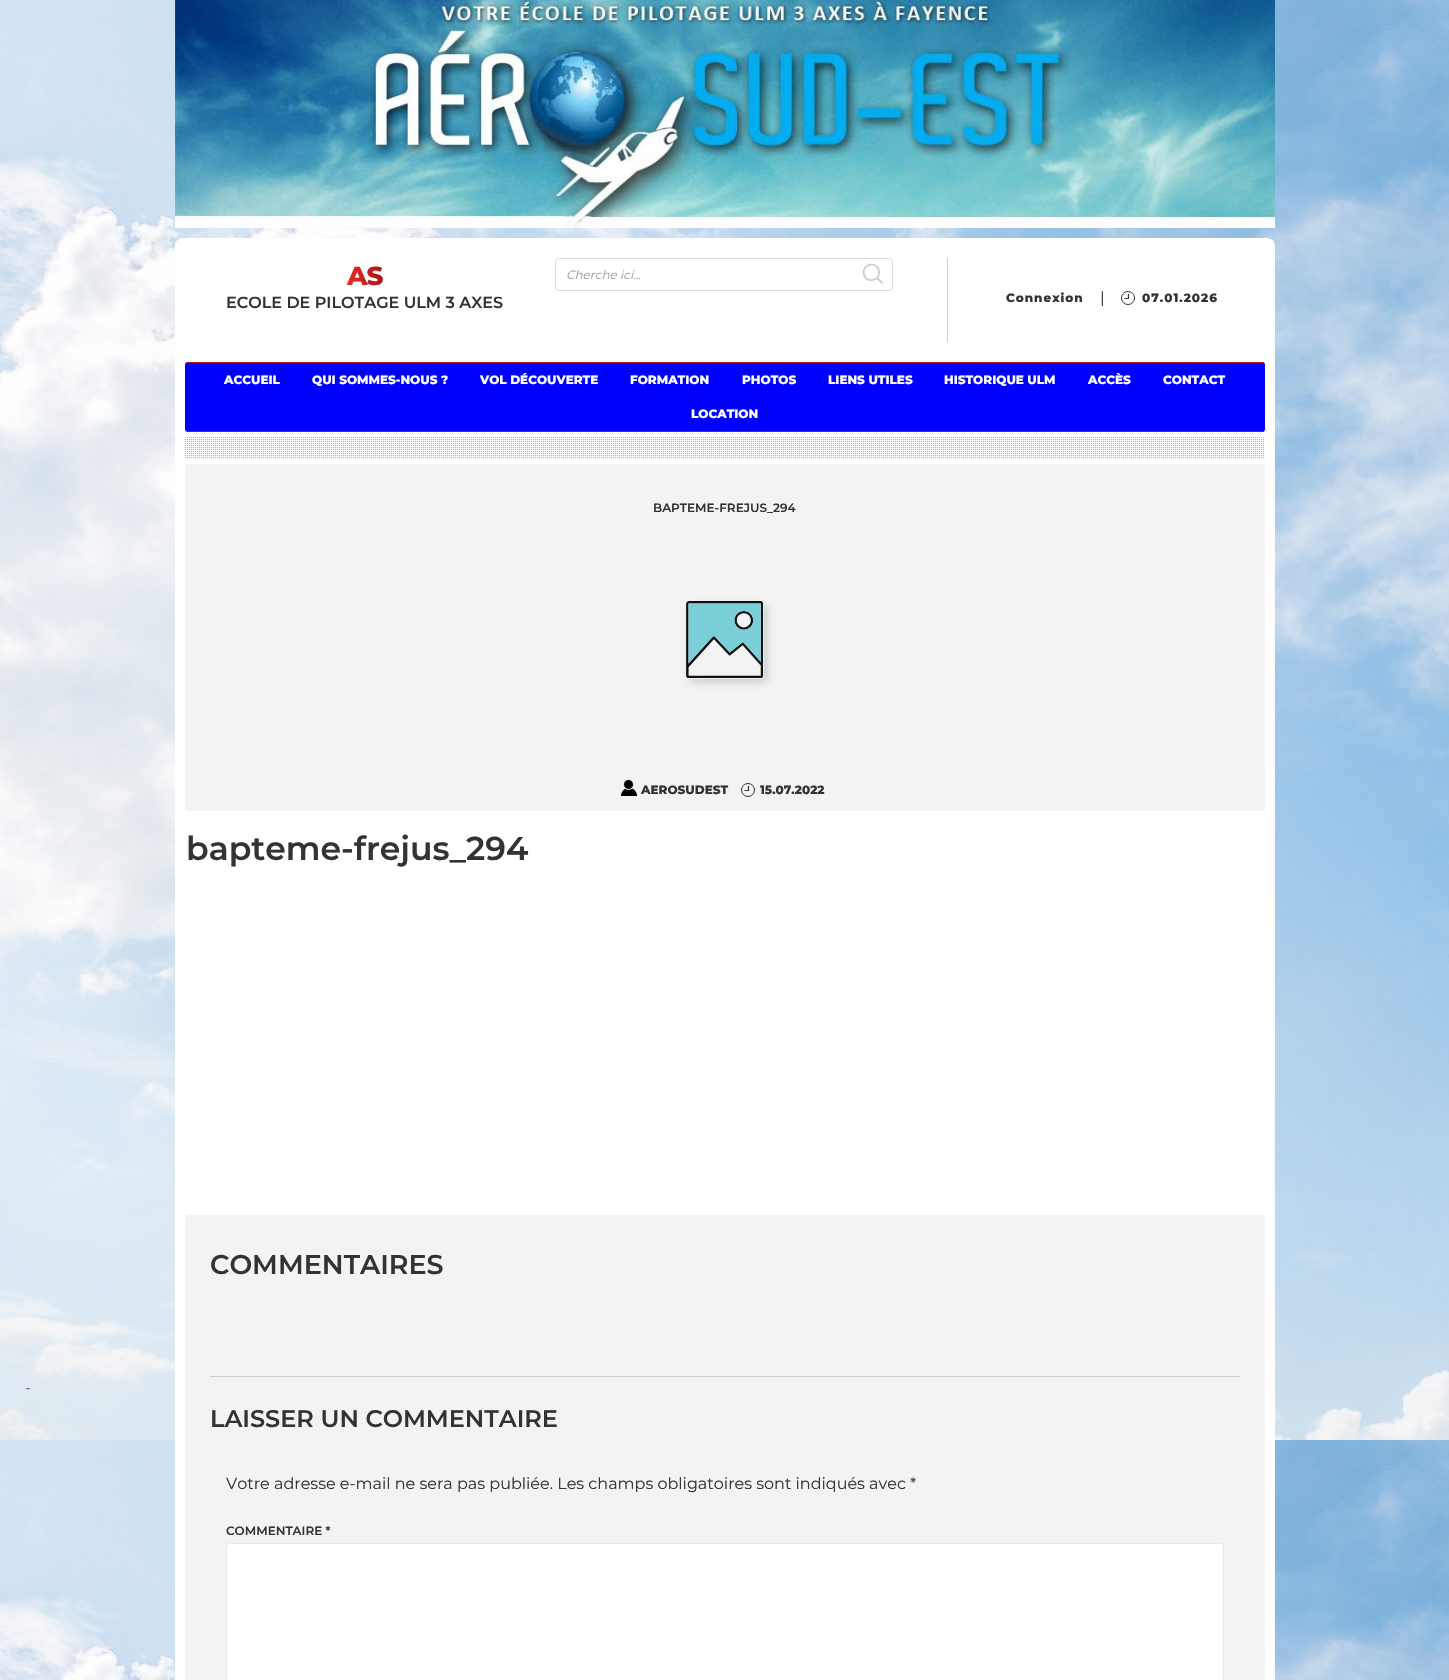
void draw(SkCanvas* canvas) {
    SkPaint paint;
    paint.setAntiAlias(true);
    auto spacedText = [&](const char* s, float x, float y, const SkFont& font, const SkPaint& ink, float letter, float word) {
        std::vector<SkGlyphID> glyphs(font.countText(s, strlen(s), SkTextEncoding::kUTF8));
        std::vector<float> xs(glyphs.size());
        font.textToGlyphs(s, strlen(s), SkTextEncoding::kUTF8, glyphs);
        font.getXPos(glyphs, xs, x);
        float extra = 0;
        for (size_t i = 0; i < glyphs.size(); i++) {
            xs[i] += extra;
            extra += letter + word * (glyphs[i] == font.unicharToGlyph(' '));
        }
        canvas->drawTextBlob(SkTextBlob::MakeFromPosHGlyphs(glyphs, xs, y, font), 0, 0, ink);
    };
    canvas->clear(0xFFFFFFFF);
    canvas->drawImageRect(SkImages::DeferredFromEncodedData(SkData::MakeFromFileName("img1.png")), SkRect::MakeXYWH(0, 0, 1449, 1680), SkSamplingOptions());
    canvas->drawImageRect(SkImages::DeferredFromEncodedData(SkData::MakeFromFileName("img2.png")), SkRect::MakeXYWH(175, 0, 1100, 228), SkSamplingOptions());
    paint.setColor(0xFFFFFFFF);
    canvas->drawRoundRect(SkRect::MakeXYWH(175, 238, 1100, 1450), 8, 8, paint);
    SkFont font1(fontMgr->matchFamilyStyle("Montserrat", SkFontStyle(800, SkFontStyle::kNormal_Width, SkFontStyle::kUpright_Slant)), 26);
    font1.setSubpixel(true);
    {
        const SkColor colors[] = {0xFFE52D27, 0xFFB31217};
        const float stops[] = {0, 1};
        const SkPoint ends[] = {{347, 276}, {382, 276}};
        paint.setShader(SkGradientShader::MakeLinear(ends, colors, stops, 2, SkTileMode::kClamp));
        paint.setAlpha(255);
    }
    spacedText("AS", 347, 285, font1, paint, -1, 0);
    SkFont font2(fontMgr->matchFamilyStyle("Montserrat", SkFontStyle(600, SkFontStyle::kNormal_Width, SkFontStyle::kUpright_Slant)), 16);
    font2.setSubpixel(true);
    paint.setShader(nullptr);
    paint.setColor(0xFF333333);
    canvas->drawString("ECOLE DE PILOTAGE ULM 3 AXES", 226, 308, font2, paint);
    paint.setStyle(SkPaint::kStroke_Style);
    paint.setStrokeWidth(1);
    paint.setColor(0xFFDBDBDB);
    canvas->drawRoundRect(SkRect::MakeXYWH(555.5f, 258.5f, 337, 32), 3.5f, 3.5f, paint);
    SkFont font3(fontMgr->matchFamilyStyle("Montserrat", SkFontStyle::Italic()), 12);
    font3.setSubpixel(true);
    paint.setStyle(SkPaint::kFill_Style);
    paint.setColor(0xFF9E9E9E);
    canvas->drawString("Cherche ici...", 566, 279, font3, paint);
    canvas->drawImageRect(SkImages::DeferredFromEncodedData(SkData::MakeFromFileName("img3.png")), SkRect::MakeXYWH(862, 263, 21, 21), SkSamplingOptions());
    paint.setColor(0xFFCCCCCC);
    canvas->drawRect(SkRect::MakeXYWH(947, 258, 1, 84), paint);
    SkFont font4(fontMgr->matchFamilyStyle("Montserrat", SkFontStyle(800, SkFontStyle::kNormal_Width, SkFontStyle::kUpright_Slant)), 12);
    font4.setSubpixel(true);
    paint.setColor(0xFF333333);
    spacedText("Connexion", 1006, 302, font4, paint, 1, 0);
    SkFont font5(fontMgr->matchFamilyStyle("Montserrat", SkFontStyle::Normal()), 16);
    font5.setSubpixel(true);
    canvas->drawString("|", 1100, 303, font5, paint);
    paint.setStyle(SkPaint::kStroke_Style);
    canvas->drawCircle(1128, 298, 6.5f, paint);
    paint.setStyle(SkPaint::kFill_Style);
    canvas->drawPath(SkPathBuilder().moveTo(1128.5f, 294).cubicTo(1129.5f, 294, 1129, 295.5f, 1129, 296.5f).cubicTo(1129, 297, 1129.5f, 299, 1128.5f, 299).cubicTo(1128, 299, 1127.5f, 295.5f, 1128, 294).close().detach(), paint);
    canvas->drawPath(SkPathBuilder().moveTo(1126, 298).lineTo(1129, 298).cubicTo(1129, 298.5f, 1129, 299, 1128.5f, 299).lineTo(1126, 299).cubicTo(1123.5f, 299, 1123.5f, 298, 1126, 298).close().detach(), paint);
    spacedText("07.01.2026", 1142, 302, font4, paint, 1, 0);
    paint.setColor(0xFF0000FF);
    canvas->drawRoundRect(SkRect::MakeXYWH(185, 362, 1080, 70), 3, 3, paint);
    paint.setColor(0xFFB31217);
    canvas->drawRect(SkRect::MakeXYWH(187, 362, 1077, 1), paint);
    canvas->drawRect(SkRect::MakeXYWH(187, 431, 1077, 1), paint);
    paint.setColor(0xFFFFFFFF);
    canvas->drawString("ACCUEIL", 224, 384, font4, paint);
    canvas->drawString("QUI SOMMES-NOUS ?", 312, 384, font4, paint);
    canvas->drawString("VOL DÉCOUVERTE", 480, 384, font4, paint);
    canvas->drawString("FORMATION", 630, 384, font4, paint);
    canvas->drawString("PHOTOS", 742, 384, font4, paint);
    canvas->drawString("LIENS UTILES", 828, 384, font4, paint);
    canvas->drawString("HISTORIQUE ULM", 944, 384, font4, paint);
    canvas->drawString("ACCÈS", 1088, 384, font4, paint);
    canvas->drawString("CONTACT", 1163, 384, font4, paint);
    canvas->drawString("LOCATION", 691, 418, font4, paint);
    canvas->drawImageRect(SkImages::DeferredFromEncodedData(SkData::MakeFromFileName("img4.png")), SkRect::MakeXYWH(185, 437, 1079, 22), SkSamplingOptions());
    paint.setColor(0xFFF3F3F3);
    canvas->drawRoundRect(SkRect::MakeXYWH(185, 464, 1080, 347), 3, 3, paint);
    SkFont font6(fontMgr->matchFamilyStyle("Montserrat", SkFontStyle(600, SkFontStyle::kNormal_Width, SkFontStyle::kUpright_Slant)), 12);
    font6.setSubpixel(true);
    paint.setColor(0xFF333333);
    canvas->drawString("BAPTEME-FREJUS_294", 653, 512, font6, paint);
    canvas->save();
    canvas->clipPath(SkPathBuilder(SkPathFillType::kEvenOdd).moveTo(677, 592).lineTo(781, 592).lineTo(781, 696).lineTo(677, 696).close().moveTo(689, 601).lineTo(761, 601).cubicTo(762.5f, 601, 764, 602.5f, 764, 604).lineTo(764, 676).cubicTo(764, 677.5f, 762.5f, 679, 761, 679).lineTo(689, 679).cubicTo(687.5f, 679, 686, 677.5f, 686, 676).lineTo(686, 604).cubicTo(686, 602.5f, 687.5f, 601, 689, 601).close().detach(), true);
    paint.setColor(0x33223C50);
    paint.setMaskFilter(SkMaskFilter::MakeBlur(kNormal_SkBlurStyle, 4));
    canvas->drawRoundRect(SkRect::MakeXYWH(690, 605, 78, 78), 3, 3, paint);
    paint.setMaskFilter(nullptr);
    canvas->restore();
    canvas->drawImageRect(SkImages::DeferredFromEncodedData(SkData::MakeFromFileName("img5.png")), SkRect::MakeXYWH(686, 601, 78, 77), SkSamplingOptions());
    paint.setColor(0xFF000000);
    canvas->drawPath(SkPathBuilder().moveTo(629, 788).cubicTo(633.5f, 788, 637, 791.5f, 637, 796).lineTo(621, 796).cubicTo(621, 791.5f, 624.5f, 788, 629, 788).close().detach(), paint);
    canvas->drawCircle(628.5f, 784.5f, 5, paint);
    paint.setStyle(SkPaint::kStroke_Style);
    paint.setColor(0xFFFFFFFF);
    canvas->drawCircle(628.5f, 784.5f, 5, paint);
    paint.setStyle(SkPaint::kFill_Style);
    paint.setColor(0xFF333333);
    canvas->drawString("AEROSUDEST", 641, 794, font4, paint);
    paint.setStyle(SkPaint::kStroke_Style);
    canvas->drawCircle(748, 790, 6.5f, paint);
    paint.setStyle(SkPaint::kFill_Style);
    canvas->drawPath(SkPathBuilder().moveTo(748.5f, 786).cubicTo(749.5f, 786, 749, 787.5f, 749, 788.5f).cubicTo(749, 789, 749.5f, 791, 748.5f, 791).cubicTo(748, 791, 747.5f, 787.5f, 748, 786).close().detach(), paint);
    canvas->drawPath(SkPathBuilder().moveTo(746, 790).lineTo(749, 790).cubicTo(749, 790.5f, 749, 791, 748.5f, 791).lineTo(746, 791).cubicTo(743.5f, 791, 743.5f, 790, 746, 790).close().detach(), paint);
    canvas->drawString("15.07.2022", 760, 794, font4, paint);
    SkFont font7(fontMgr->matchFamilyStyle("Montserrat", SkFontStyle(600, SkFontStyle::kNormal_Width, SkFontStyle::kUpright_Slant)), 33);
    font7.setSubpixel(true);
    canvas->drawString("bapteme-frejus_294", 186, 860, font7, paint);
    paint.setColor(0xFFF3F3F3);
    canvas->drawRoundRect(SkRect::MakeXYWH(185, 1215, 1080, 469), 4, 4, paint);
    SkFont font8(fontMgr->matchFamilyStyle("Montserrat", SkFontStyle(600, SkFontStyle::kNormal_Width, SkFontStyle::kUpright_Slant)), 27);
    font8.setSubpixel(true);
    paint.setColor(0xFF333333);
    canvas->drawString("COMMENTAIRES", 210, 1274, font8, paint);
    paint.setColor(0xFFCCCCCC);
    canvas->drawRect(SkRect::MakeXYWH(210, 1376, 1030, 1), paint);
    SkFont font9(fontMgr->matchFamilyStyle("Montserrat", SkFontStyle(600, SkFontStyle::kNormal_Width, SkFontStyle::kUpright_Slant)), 24);
    font9.setSubpixel(true);
    paint.setColor(0xFF333333);
    canvas->drawString("LAISSER UN COMMENTAIRE", 210, 1427, font9, paint);
    canvas->drawString("Votre adresse e-mail ne sera pas publiée. Les champs obligatoires sont indiqués avec *", 226, 1489, font5, paint);
    canvas->drawString("COMMENTAIRE *", 226, 1535, font6, paint);
    paint.setColor(0xFFFFFFFF);
    canvas->drawRoundRect(SkRect::MakeXYWH(226.5f, 1543.5f, 997, 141), 3.5f, 3.5f, paint);
    paint.setStyle(SkPaint::kStroke_Style);
    paint.setColor(0xFFE8E8E8);
    canvas->drawRoundRect(SkRect::MakeXYWH(226.5f, 1543.5f, 997, 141), 3.5f, 3.5f, paint);
}
